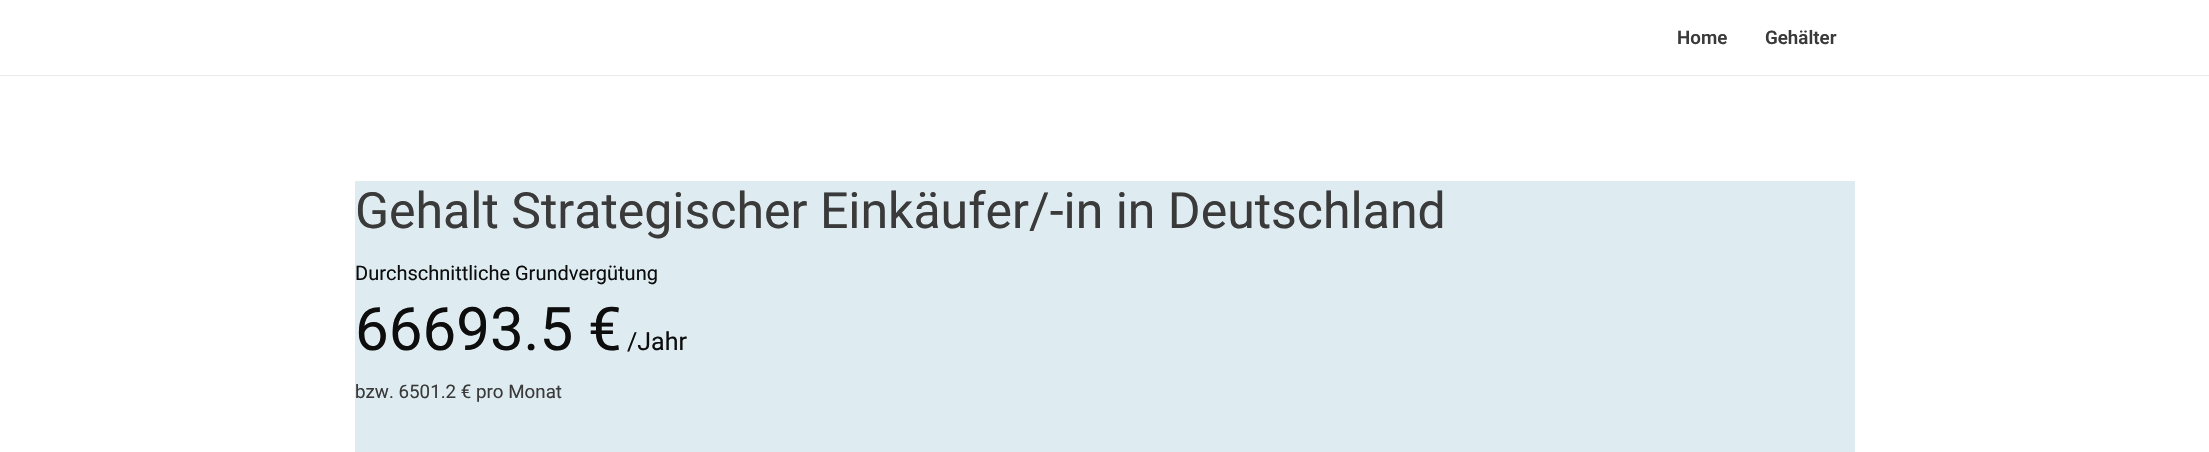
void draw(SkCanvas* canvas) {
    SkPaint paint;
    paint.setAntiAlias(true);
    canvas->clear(0xFFFFFFFF);
    paint.setColor(0xFFEAEAEA);
    canvas->drawRect(SkRect::MakeXYWH(0, 75, 2209, 1), paint);
    SkFont font1(fontMgr->matchFamilyStyle("Roboto", SkFontStyle(600, SkFontStyle::kNormal_Width, SkFontStyle::kUpright_Slant)), 18.75f);
    font1.setSubpixel(true);
    paint.setColor(0xFF3A3A3A);
    canvas->drawString("Home", 1677, 44, font1, paint);
    canvas->drawString("Gehälter", 1765, 44, font1, paint);
    paint.setColor(0xFFDEEBF0);
    canvas->drawRect(SkRect::MakeXYWH(355, 181, 1500, 271), paint);
    SkFont font2(fontMgr->matchFamilyStyle("Roboto", SkFontStyle::Normal()), 50);
    font2.setSubpixel(true);
    paint.setColor(0xFF3A3A3A);
    canvas->drawString("Gehalt Strategischer Einkäufer/-in in Deutschland", 355, 228, font2, paint);
    SkFont font3(fontMgr->matchFamilyStyle("Roboto", SkFontStyle::Normal()), 20);
    font3.setSubpixel(true);
    paint.setColor(0xFF0D0D0D);
    canvas->drawString("Durchschnittliche Grundvergütung", 355, 280, font3, paint);
    SkFont font4(fontMgr->matchFamilyStyle("Roboto", SkFontStyle::Normal()), 60);
    font4.setSubpixel(true);
    canvas->drawString("66693.5 €", 355, 350, font4, paint);
    SkFont font5(fontMgr->matchFamilyStyle("Roboto", SkFontStyle::Normal()), 25);
    font5.setSubpixel(true);
    canvas->drawString("/Jahr", 627, 350, font5, paint);
    SkFont font6(fontMgr->matchFamilyStyle("Roboto", SkFontStyle::Normal()), 18.75f);
    font6.setSubpixel(true);
    paint.setColor(0xFF3A3A3A);
    canvas->drawString("bzw. 6501.2 € pro Monat", 355, 398, font6, paint);
}
